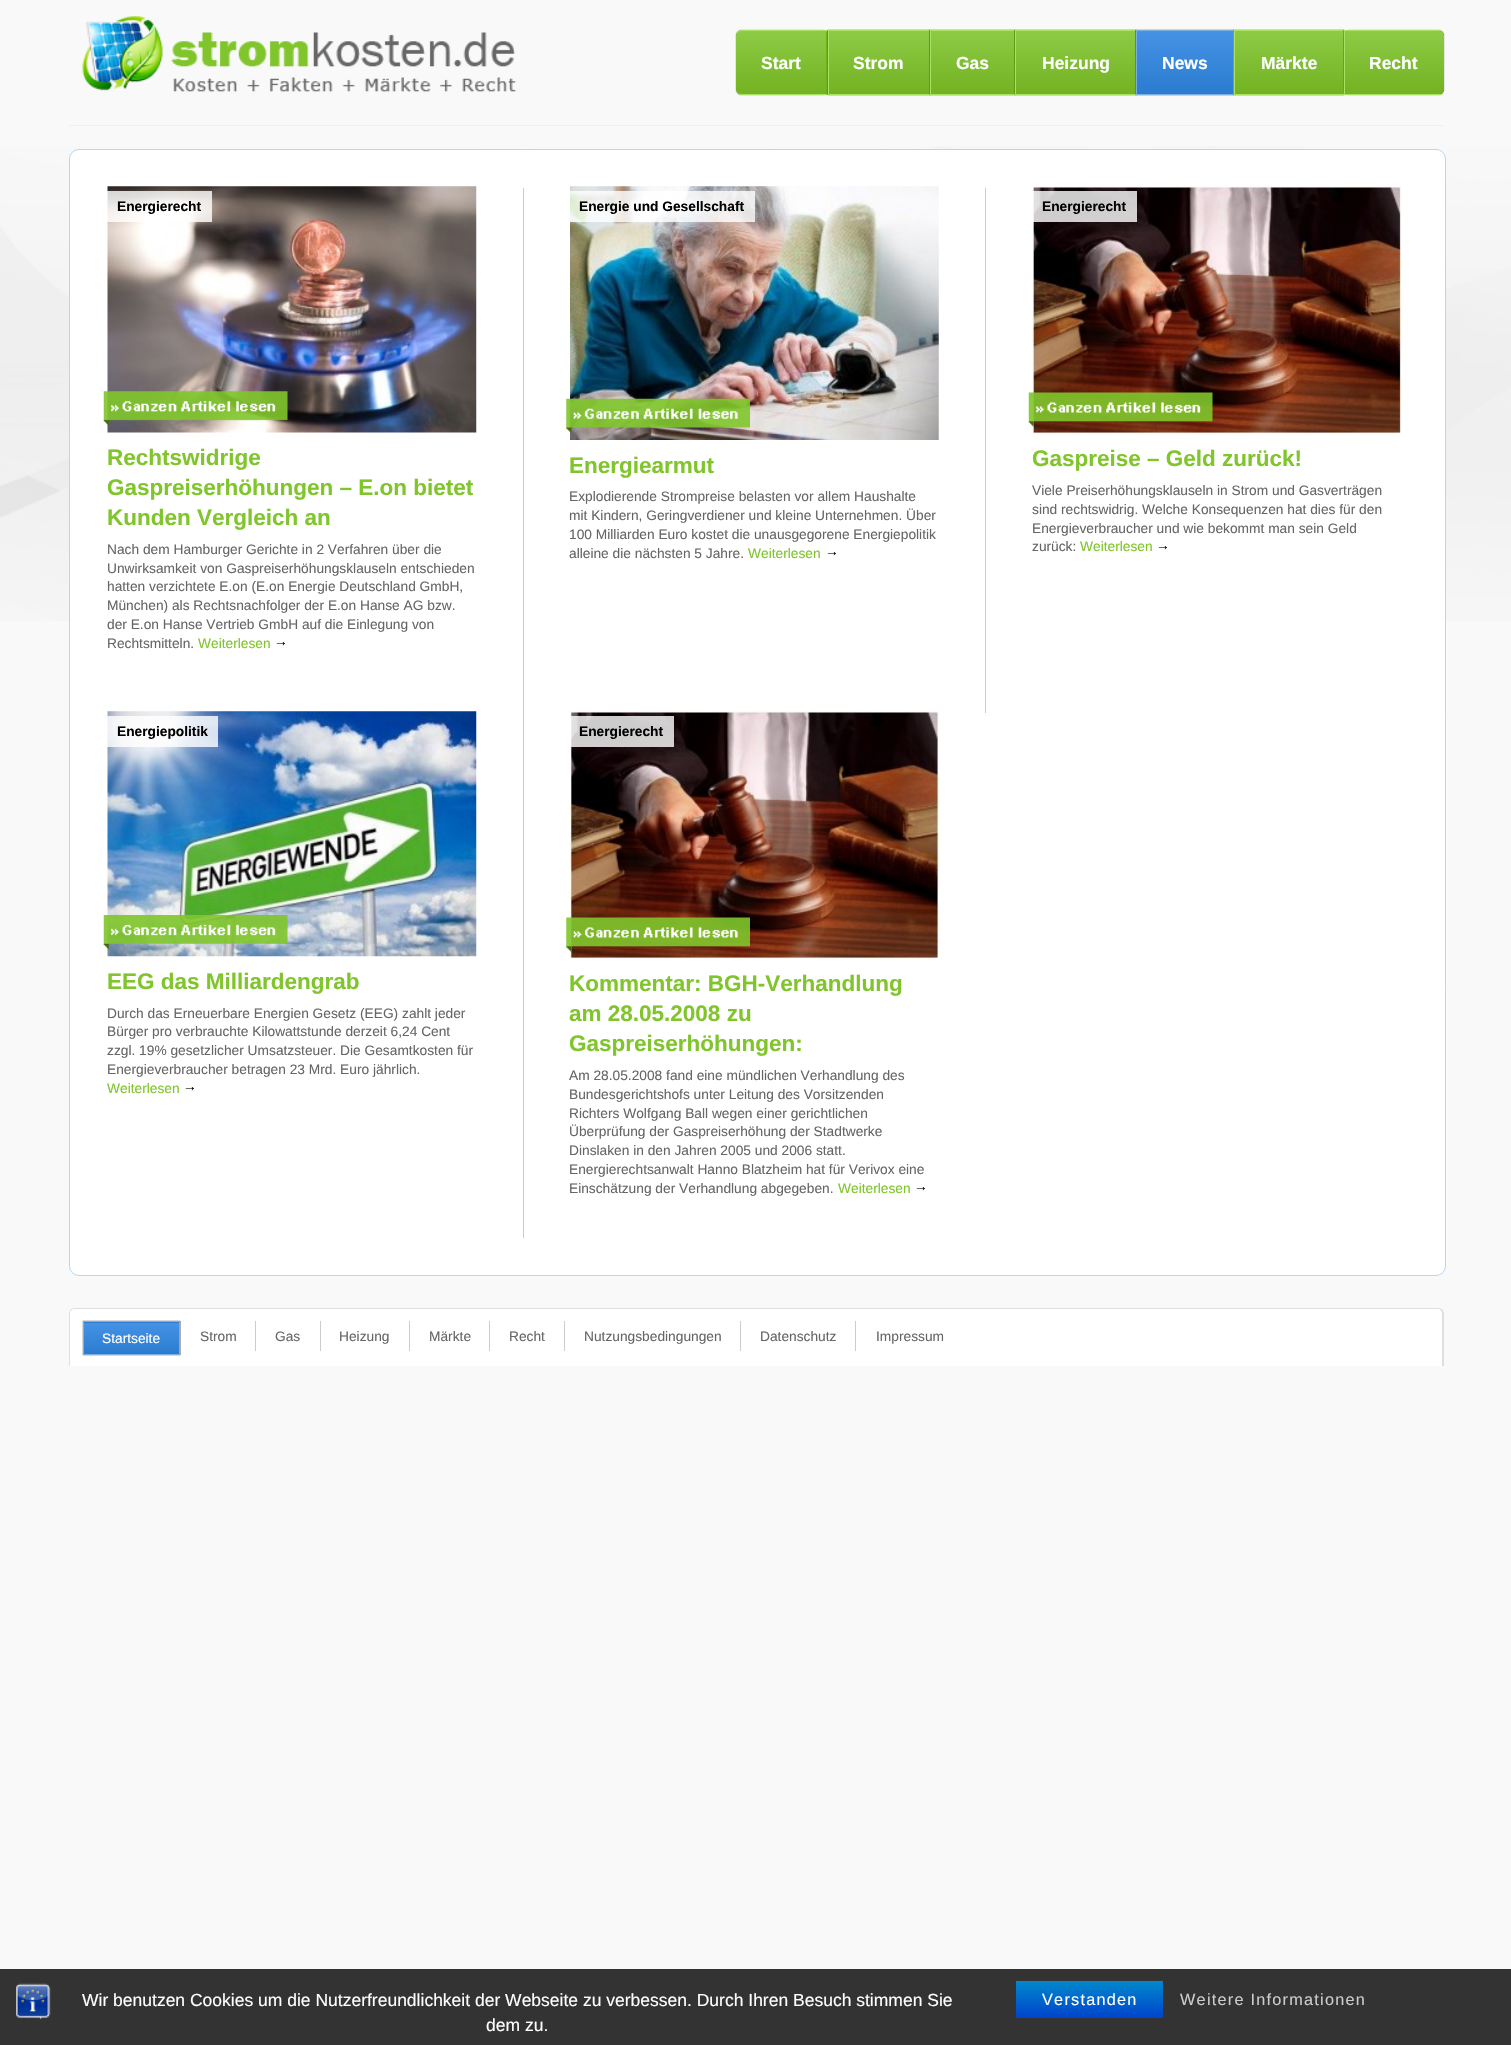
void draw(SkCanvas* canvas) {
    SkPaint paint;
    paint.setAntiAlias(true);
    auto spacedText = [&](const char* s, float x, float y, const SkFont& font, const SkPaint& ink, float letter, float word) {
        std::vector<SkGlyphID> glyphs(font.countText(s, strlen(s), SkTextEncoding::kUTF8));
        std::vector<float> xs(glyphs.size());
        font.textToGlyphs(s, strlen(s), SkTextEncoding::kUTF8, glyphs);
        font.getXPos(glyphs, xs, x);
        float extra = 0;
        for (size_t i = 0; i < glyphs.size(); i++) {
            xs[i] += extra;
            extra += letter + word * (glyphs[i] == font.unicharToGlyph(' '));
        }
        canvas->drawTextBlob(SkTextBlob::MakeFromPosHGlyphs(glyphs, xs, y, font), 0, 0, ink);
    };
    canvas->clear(0xFFF9F9F9);
    canvas->drawImageRect(SkImages::DeferredFromEncodedData(SkData::MakeFromFileName("img1.png")), SkRect::MakeXYWH(0, 146, 1511, 475), SkSamplingOptions());
    canvas->drawImageRect(SkImages::DeferredFromEncodedData(SkData::MakeFromFileName("img2.png")), SkRect::MakeXYWH(82, 16, 435, 76), SkSamplingOptions());
    paint.setColor(0xFF172C00);
    paint.setMaskFilter(SkMaskFilter::MakeBlur(kNormal_SkBlurStyle, 0.5f));
    canvas->drawRoundRect(SkRect::MakeXYWH(736, 30, 92, 65), 6, 6, paint);
    paint.setMaskFilter(nullptr);
    canvas->save();
    canvas->clipPath(SkPathBuilder().moveTo(742, 30).lineTo(828, 30).lineTo(828, 95).lineTo(742, 95).cubicTo(738.5f, 95, 736, 92.5f, 736, 89).lineTo(736, 36).cubicTo(736, 32.5f, 738.5f, 30, 742, 30).close().detach(), true);
    {
        const SkColor colors[] = {0xFF8DCB46, 0xFF73B221};
        const float stops[] = {0, 1};
        const SkPoint ends[] = {{781, 31}, {781, 94}};
        paint.setShader(SkGradientShader::MakeLinear(ends, colors, stops, 2, SkTileMode::kClamp));
        paint.setAlpha(255);
    }
    canvas->drawRect(SkRect::MakeXYWH(736, 31, 91, 63), paint);
    {
        const SkColor colors[] = {0xFF8DCB46, 0xFF73B221};
        const float stops[] = {0, 1};
        const SkPoint ends[] = {{781, 94}, {781, 156}};
        paint.setShader(SkGradientShader::MakeLinear(ends, colors, stops, 2, SkTileMode::kClamp));
        paint.setAlpha(255);
    }
    canvas->drawRect(SkRect::MakeXYWH(736, 94, 92, 1), paint);
    canvas->restore();
    paint.setShader(nullptr);
    paint.setColor(0xFFA8E164);
    canvas->drawPath(SkPathBuilder().moveTo(742, 30).cubicTo(740, 30, 736, 32, 736, 35).cubicTo(737, 32, 740, 31, 742, 31).lineTo(826, 31).lineTo(826, 32).lineTo(828, 30).close().detach(), paint);
    paint.setColor(0xFF6CB416);
    canvas->drawPath(SkPathBuilder().moveTo(828, 30).lineTo(828, 95).lineTo(826, 94).lineTo(826, 32).close().detach(), paint);
    paint.setColor(0xFFA8E164);
    canvas->drawPath(SkPathBuilder().moveTo(828, 95).lineTo(742, 95).cubicTo(740, 95, 737, 93, 736, 91).lineTo(736, 90).cubicTo(737, 93, 740, 94, 742, 94).lineTo(826, 94).close().detach(), paint);
    SkFont font1(fontMgr->matchFamilyStyle("Liberation Sans", SkFontStyle::Bold()), 17.5f);
    font1.setSubpixel(true);
    paint.setColor(0xFFFFFFFF);
    canvas->drawString("Start", 761, 69, font1, paint);
    paint.setColor(0xFF172C00);
    paint.setMaskFilter(SkMaskFilter::MakeBlur(kNormal_SkBlurStyle, 0.5f));
    canvas->drawRect(SkRect::MakeXYWH(828, 30, 102, 65), paint);
    paint.setMaskFilter(nullptr);
    {
        const SkColor colors[] = {0xFF8DCB46, 0xFF73B221};
        const float stops[] = {0, 1};
        const SkPoint ends[] = {{879, 31}, {879, 94}};
        paint.setShader(SkGradientShader::MakeLinear(ends, colors, stops, 2, SkTileMode::kClamp));
        paint.setAlpha(255);
    }
    canvas->drawRect(SkRect::MakeXYWH(829, 31, 100, 63), paint);
    paint.setShader(nullptr);
    paint.setColor(0xFFA8E164);
    canvas->drawRect(SkRect::MakeXYWH(828, 30, 102, 1), paint);
    paint.setColor(0xFF6CB416);
    canvas->drawRect(SkRect::MakeXYWH(929, 30, 1, 65), paint);
    paint.setColor(0xFFA8E164);
    canvas->drawRect(SkRect::MakeXYWH(828, 94, 102, 1), paint);
    canvas->drawRect(SkRect::MakeXYWH(828, 30, 1, 65), paint);
    paint.setColor(0xFFFFFFFF);
    canvas->drawString("Strom", 853, 69, font1, paint);
    paint.setColor(0xFF172C00);
    paint.setMaskFilter(SkMaskFilter::MakeBlur(kNormal_SkBlurStyle, 0.5f));
    canvas->drawRect(SkRect::MakeXYWH(930, 30, 85, 65), paint);
    paint.setMaskFilter(nullptr);
    {
        const SkColor colors[] = {0xFF8DCB46, 0xFF73B221};
        const float stops[] = {0, 1};
        const SkPoint ends[] = {{973, 31}, {973, 94}};
        paint.setShader(SkGradientShader::MakeLinear(ends, colors, stops, 2, SkTileMode::kClamp));
        paint.setAlpha(255);
    }
    canvas->drawRect(SkRect::MakeXYWH(931, 31, 83, 63), paint);
    paint.setShader(nullptr);
    paint.setColor(0xFFA8E164);
    canvas->drawRect(SkRect::MakeXYWH(930, 30, 85, 1), paint);
    paint.setColor(0xFF6CB416);
    canvas->drawRect(SkRect::MakeXYWH(1014, 30, 1, 65), paint);
    paint.setColor(0xFFA8E164);
    canvas->drawRect(SkRect::MakeXYWH(930, 94, 85, 1), paint);
    canvas->drawRect(SkRect::MakeXYWH(930, 30, 1, 65), paint);
    paint.setColor(0xFFFFFFFF);
    canvas->drawString("Gas", 956, 69, font1, paint);
    paint.setColor(0xFF172C00);
    paint.setMaskFilter(SkMaskFilter::MakeBlur(kNormal_SkBlurStyle, 0.5f));
    canvas->drawRect(SkRect::MakeXYWH(1015, 30, 121, 65), paint);
    paint.setMaskFilter(nullptr);
    {
        const SkColor colors[] = {0xFF8DCB46, 0xFF73B221};
        const float stops[] = {0, 1};
        const SkPoint ends[] = {{1076, 31}, {1076, 94}};
        paint.setShader(SkGradientShader::MakeLinear(ends, colors, stops, 2, SkTileMode::kClamp));
        paint.setAlpha(255);
    }
    canvas->drawRect(SkRect::MakeXYWH(1016, 31, 119, 63), paint);
    paint.setShader(nullptr);
    paint.setColor(0xFFA8E164);
    canvas->drawRect(SkRect::MakeXYWH(1015, 30, 121, 1), paint);
    paint.setColor(0xFF6CB416);
    canvas->drawRect(SkRect::MakeXYWH(1135, 30, 1, 65), paint);
    paint.setColor(0xFFA8E164);
    canvas->drawRect(SkRect::MakeXYWH(1015, 94, 121, 1), paint);
    canvas->drawRect(SkRect::MakeXYWH(1015, 30, 1, 65), paint);
    paint.setColor(0xFFFFFFFF);
    canvas->drawString("Heizung", 1042, 69, font1, paint);
    paint.setColor(0xFF000F1E);
    paint.setMaskFilter(SkMaskFilter::MakeBlur(kNormal_SkBlurStyle, 0.5f));
    canvas->drawRect(SkRect::MakeXYWH(1136, 30, 98, 65), paint);
    paint.setMaskFilter(nullptr);
    {
        const SkColor colors[] = {0xFF4692E5, 0xFF2A7CD0};
        const float stops[] = {0, 1};
        const SkPoint ends[] = {{1185, 31}, {1185, 94}};
        paint.setShader(SkGradientShader::MakeLinear(ends, colors, stops, 2, SkTileMode::kClamp));
        paint.setAlpha(255);
    }
    canvas->drawRect(SkRect::MakeXYWH(1137, 31, 96, 63), paint);
    paint.setStyle(SkPaint::kStroke_Style);
    paint.setStrokeWidth(1);
    paint.setShader(nullptr);
    paint.setColor(0xFF80AEDD);
    canvas->drawRect(SkRect::MakeXYWH(1136.5f, 30.5f, 97, 64), paint);
    paint.setStyle(SkPaint::kFill_Style);
    paint.setColor(0xFFFFFFFF);
    canvas->drawString("News", 1162, 69, font1, paint);
    paint.setColor(0xFF172C00);
    paint.setMaskFilter(SkMaskFilter::MakeBlur(kNormal_SkBlurStyle, 0.5f));
    canvas->drawRect(SkRect::MakeXYWH(1234, 30, 110, 65), paint);
    paint.setMaskFilter(nullptr);
    {
        const SkColor colors[] = {0xFF8DCB46, 0xFF73B221};
        const float stops[] = {0, 1};
        const SkPoint ends[] = {{1289, 31}, {1289, 94}};
        paint.setShader(SkGradientShader::MakeLinear(ends, colors, stops, 2, SkTileMode::kClamp));
        paint.setAlpha(255);
    }
    canvas->drawRect(SkRect::MakeXYWH(1235, 31, 108, 63), paint);
    paint.setShader(nullptr);
    paint.setColor(0xFFA8E164);
    canvas->drawRect(SkRect::MakeXYWH(1234, 30, 110, 1), paint);
    paint.setColor(0xFF6CB416);
    canvas->drawRect(SkRect::MakeXYWH(1343, 30, 1, 65), paint);
    paint.setColor(0xFFA8E164);
    canvas->drawRect(SkRect::MakeXYWH(1234, 94, 110, 1), paint);
    canvas->drawRect(SkRect::MakeXYWH(1234, 30, 1, 65), paint);
    paint.setColor(0xFFFFFFFF);
    canvas->drawString("Märkte", 1261, 69, font1, paint);
    paint.setColor(0xFF172C00);
    paint.setMaskFilter(SkMaskFilter::MakeBlur(kNormal_SkBlurStyle, 0.5f));
    canvas->drawRoundRect(SkRect::MakeXYWH(1344, 30, 100, 65), 6, 6, paint);
    paint.setMaskFilter(nullptr);
    canvas->save();
    canvas->clipPath(SkPathBuilder().moveTo(1344, 30).lineTo(1438, 30).cubicTo(1441.5f, 30, 1444, 32.5f, 1444, 36).lineTo(1444, 89).cubicTo(1444, 92.5f, 1441.5f, 95, 1438, 95).lineTo(1344, 95).close().detach(), true);
    {
        const SkColor colors[] = {0xFF8DCB46, 0xFF73B221};
        const float stops[] = {0, 1};
        const SkPoint ends[] = {{1394, 31}, {1394, 94}};
        paint.setShader(SkGradientShader::MakeLinear(ends, colors, stops, 2, SkTileMode::kClamp));
        paint.setAlpha(255);
    }
    canvas->drawRect(SkRect::MakeXYWH(1345, 31, 99, 63), paint);
    canvas->restore();
    paint.setShader(nullptr);
    paint.setColor(0xFFA8E164);
    canvas->drawRect(SkRect::MakeXYWH(1344, 30, 97, 1), paint);
    canvas->drawRect(SkRect::MakeXYWH(1344, 94, 97, 1), paint);
    canvas->drawRect(SkRect::MakeXYWH(1344, 30, 1, 65), paint);
    paint.setColor(0xFFFFFFFF);
    canvas->drawString("Recht", 1369, 69, font1, paint);
    paint.setColor(0xFFF0F0F0);
    canvas->drawRect(SkRect::MakeXYWH(69, 125, 1375, 1), paint);
    paint.setColor(0xFFFFFFFF);
    canvas->drawRoundRect(SkRect::MakeXYWH(69.5f, 149.5f, 1376, 1126), 9.5f, 9.5f, paint);
    paint.setStyle(SkPaint::kStroke_Style);
    paint.setColor(0xFFBBD5EE);
    canvas->drawRoundRect(SkRect::MakeXYWH(69.5f, 149.5f, 1376, 1126), 9.5f, 9.5f, paint);
    paint.setStyle(SkPaint::kFill_Style);
    paint.setColor(0xFFCCCCCC);
    canvas->drawRect(SkRect::MakeXYWH(523, 188, 1, 1050), paint);
    canvas->drawImageRect(SkImages::DeferredFromEncodedData(SkData::MakeFromFileName("img3.png")), SkRect::MakeXYWH(107, 186, 370, 247), SkSamplingOptions());
    paint.setColor(0xCCFFFFFF);
    canvas->drawRect(SkRect::MakeXYWH(107, 191, 105, 31), paint);
    SkFont font2(fontMgr->matchFamilyStyle("Liberation Sans", SkFontStyle::Bold()), 13.75f);
    font2.setSubpixel(true);
    paint.setColor(0xFF000000);
    canvas->drawString("Energierecht", 117, 211, font2, paint);
    canvas->drawImageRect(SkImages::DeferredFromEncodedData(SkData::MakeFromFileName("img4.png")), SkRect::MakeXYWH(103, 391, 185, 34), SkSamplingOptions());
    SkFont font3(fontMgr->matchFamilyStyle("Liberation Sans", SkFontStyle::Bold()), 22.5f);
    font3.setSubpixel(true);
    paint.setColor(0xFF80C52B);
    canvas->drawString("Rechtswidrige", 107, 465, font3, paint);
    canvas->drawString("Gaspreiserhöhungen – E.on bietet", 107, 495, font3, paint);
    canvas->drawString("Kunden Vergleich an", 107, 525, font3, paint);
    SkFont font4(fontMgr->matchFamilyStyle("Liberation Sans", SkFontStyle::Normal()), 13.75f);
    font4.setSubpixel(true);
    paint.setColor(0xFF666666);
    canvas->drawString("Nach dem Hamburger Gerichte in 2 Verfahren über die", 107, 554, font4, paint);
    canvas->drawString("Unwirksamkeit von Gaspreiserhöhungsklauseln entschieden", 107, 573, font4, paint);
    canvas->drawString("hatten verzichtete E.on (E.on Energie Deutschland GmbH,", 107, 591, font4, paint);
    canvas->drawString("München) als Rechtsnachfolger der E.on Hanse AG bzw.", 107, 610, font4, paint);
    canvas->drawString("der E.on Hanse Vertrieb GmbH auf die Einlegung von", 107, 629, font4, paint);
    canvas->drawString("Rechtsmitteln.", 107, 648, font4, paint);
    paint.setColor(0xFF80C52B);
    canvas->drawString("Weiterlesen", 198, 648, font4, paint);
    paint.setColor(0xFF000000);
    canvas->drawString("→", 274, 646, font2, paint);
    paint.setColor(0xFFCCCCCC);
    canvas->drawRect(SkRect::MakeXYWH(985, 188, 1, 525), paint);
    canvas->drawImageRect(SkImages::DeferredFromEncodedData(SkData::MakeFromFileName("img5.png")), SkRect::MakeXYWH(570, 186, 369, 254), SkSamplingOptions());
    paint.setColor(0xCCFFFFFF);
    canvas->drawRect(SkRect::MakeXYWH(570, 191, 185, 31), paint);
    paint.setColor(0xFF000000);
    canvas->drawString("Energie und Gesellschaft", 579, 211, font2, paint);
    canvas->drawImageRect(SkImages::DeferredFromEncodedData(SkData::MakeFromFileName("img6.png")), SkRect::MakeXYWH(566, 398, 184, 35), SkSamplingOptions());
    paint.setColor(0xFF80C52B);
    canvas->drawString("Energiearmut", 569, 473, font3, paint);
    paint.setColor(0xFF666666);
    canvas->drawString("Explodierende Strompreise belasten vor allem Haushalte", 569, 501, font4, paint);
    canvas->drawString("mit Kindern, Geringverdiener und kleine Unternehmen. Über", 569, 520, font4, paint);
    canvas->drawString("100 Milliarden Euro kostet die unausgegorene Energiepolitik", 569, 539, font4, paint);
    canvas->drawString("alleine die nächsten 5 Jahre.", 569, 558, font4, paint);
    paint.setColor(0xFF80C52B);
    canvas->drawString("Weiterlesen", 748, 558, font4, paint);
    paint.setColor(0xFF000000);
    canvas->drawString("→", 825, 556, font2, paint);
    canvas->drawImageRect(SkImages::DeferredFromEncodedData(SkData::MakeFromFileName("img7.png")), SkRect::MakeXYWH(1032, 186, 370, 248), SkSamplingOptions());
    paint.setColor(0xCCFFFFFF);
    canvas->drawRect(SkRect::MakeXYWH(1033, 191, 104, 31), paint);
    paint.setColor(0xFF000000);
    canvas->drawString("Energierecht", 1042, 211, font2, paint);
    canvas->drawImageRect(SkImages::DeferredFromEncodedData(SkData::MakeFromFileName("img8.png")), SkRect::MakeXYWH(1028, 392, 185, 35), SkSamplingOptions());
    paint.setColor(0xFF80C52B);
    canvas->drawString("Gaspreise – Geld zurück!", 1032, 466, font3, paint);
    paint.setColor(0xFF666666);
    canvas->drawString("Viele Preiserhöhungsklauseln in Strom und Gasverträgen", 1032, 495, font4, paint);
    canvas->drawString("sind rechtswidrig. Welche Konsequenzen hat dies für den", 1032, 514, font4, paint);
    canvas->drawString("Energieverbraucher und wie bekommt man sein Geld", 1032, 533, font4, paint);
    canvas->drawString("zurück:", 1032, 551, font4, paint);
    paint.setColor(0xFF80C52B);
    canvas->drawString("Weiterlesen", 1080, 551, font4, paint);
    paint.setColor(0xFF000000);
    canvas->drawString("→", 1156, 550, font2, paint);
    canvas->drawImageRect(SkImages::DeferredFromEncodedData(SkData::MakeFromFileName("img9.png")), SkRect::MakeXYWH(107, 711, 370, 246), SkSamplingOptions());
    paint.setColor(0xCCFFFFFF);
    canvas->drawRect(SkRect::MakeXYWH(107, 716, 111, 31), paint);
    paint.setColor(0xFF000000);
    canvas->drawString("Energiepolitik", 117, 736, font2, paint);
    canvas->drawImageRect(SkImages::DeferredFromEncodedData(SkData::MakeFromFileName("img10.png")), SkRect::MakeXYWH(103, 915, 185, 34), SkSamplingOptions());
    paint.setColor(0xFF80C52B);
    canvas->drawString("EEG das Milliardengrab", 107, 989, font3, paint);
    paint.setColor(0xFF666666);
    canvas->drawString("Durch das Erneuerbare Energien Gesetz (EEG) zahlt jeder", 107, 1018, font4, paint);
    canvas->drawString("Bürger pro verbrauchte Kilowattstunde derzeit 6,24 Cent", 107, 1036, font4, paint);
    canvas->drawString("zzgl. 19% gesetzlicher Umsatzsteuer. Die Gesamtkosten für", 107, 1055, font4, paint);
    canvas->drawString("Energieverbraucher betragen 23 Mrd. Euro jährlich.", 107, 1074, font4, paint);
    paint.setColor(0xFF80C52B);
    canvas->drawString("Weiterlesen", 107, 1093, font4, paint);
    paint.setColor(0xFF000000);
    canvas->drawString("→", 183, 1091, font2, paint);
    canvas->drawImageRect(SkImages::DeferredFromEncodedData(SkData::MakeFromFileName("img11.png")), SkRect::MakeXYWH(570, 711, 369, 248), SkSamplingOptions());
    paint.setColor(0xCCFFFFFF);
    canvas->drawRect(SkRect::MakeXYWH(570, 716, 104, 31), paint);
    paint.setColor(0xFF000000);
    canvas->drawString("Energierecht", 579, 736, font2, paint);
    canvas->drawImageRect(SkImages::DeferredFromEncodedData(SkData::MakeFromFileName("img12.png")), SkRect::MakeXYWH(566, 917, 184, 35), SkSamplingOptions());
    paint.setColor(0xFF80C52B);
    canvas->drawString("Kommentar: BGH-Verhandlung", 569, 991, font3, paint);
    canvas->drawString("am 28.05.2008 zu", 569, 1021, font3, paint);
    canvas->drawString("Gaspreiserhöhungen:", 569, 1051, font3, paint);
    paint.setColor(0xFF666666);
    canvas->drawString("Am 28.05.2008 fand eine mündlichen Verhandlung des", 569, 1080, font4, paint);
    canvas->drawString("Bundesgerichtshofs unter Leitung des Vorsitzenden", 569, 1099, font4, paint);
    canvas->drawString("Richters Wolfgang Ball wegen einer gerichtlichen", 569, 1118, font4, paint);
    canvas->drawString("Überprüfung der Gaspreiserhöhung der Stadtwerke", 569, 1136, font4, paint);
    canvas->drawString("Dinslaken in den Jahren 2005 und 2006 statt.", 569, 1155, font4, paint);
    canvas->drawString("Energierechtsanwalt Hanno Blatzheim hat für Verivox eine", 569, 1174, font4, paint);
    canvas->drawString("Einschätzung der Verhandlung abgegeben.", 569, 1193, font4, paint);
    paint.setColor(0xFF80C52B);
    canvas->drawString("Weiterlesen", 838, 1193, font4, paint);
    paint.setColor(0xFF000000);
    canvas->drawString("→", 914, 1191, font2, paint);
    paint.setColor(0xFFFFFFFF);
    canvas->drawPath(SkPathBuilder().moveTo(75, 1308).lineTo(1438, 1308).cubicTo(1441.5f, 1308, 1444, 1310.5f, 1444, 1314).lineTo(1444, 1366).lineTo(69, 1366).lineTo(69, 1314).cubicTo(69, 1310.5f, 71.5f, 1308, 75, 1308).close().detach(), paint);
    paint.setColor(0xFFDFDFDF);
    canvas->drawPath(SkPathBuilder(SkPathFillType::kEvenOdd).moveTo(75, 1308).lineTo(1438, 1308).cubicTo(1441, 1308, 1444, 1310, 1444, 1314).lineTo(1444, 1366).lineTo(69, 1366).lineTo(69, 1314).cubicTo(69, 1310, 72, 1308, 75, 1308).close().moveTo(75, 1309).lineTo(1438, 1309).cubicTo(1440, 1309, 1442, 1311, 1442, 1314).lineTo(1442, 1366).lineTo(70, 1366).lineTo(70, 1314).cubicTo(70, 1311, 72, 1309, 75, 1309).close().detach(), paint);
    paint.setColor(0xFFCCCCCC);
    canvas->drawRect(SkRect::MakeXYWH(180, 1321, 1, 34), paint);
    paint.setColor(0xFF000F1E);
    paint.setMaskFilter(SkMaskFilter::MakeBlur(kNormal_SkBlurStyle, 0.5f));
    canvas->drawRect(SkRect::MakeXYWH(83, 1321, 97, 34), paint);
    paint.setMaskFilter(nullptr);
    {
        const SkColor colors[] = {0xFF4692E5, 0xFF2A7CD0};
        const float stops[] = {0, 1};
        const SkPoint ends[] = {{131, 1291}, {131, 1323}};
        paint.setShader(SkGradientShader::MakeLinear(ends, colors, stops, 2, SkTileMode::kClamp));
        paint.setAlpha(255);
    }
    canvas->drawRect(SkRect::MakeXYWH(83, 1322, 97, 1), paint);
    {
        const SkColor colors[] = {0xFF4692E5, 0xFF2A7CD0};
        const float stops[] = {0, 1};
        const SkPoint ends[] = {{131, 1323}, {131, 1354}};
        paint.setShader(SkGradientShader::MakeLinear(ends, colors, stops, 2, SkTileMode::kClamp));
        paint.setAlpha(255);
    }
    canvas->drawRect(SkRect::MakeXYWH(84, 1323, 95, 31), paint);
    paint.setStyle(SkPaint::kStroke_Style);
    paint.setShader(nullptr);
    paint.setColor(0xFF80AEDD);
    canvas->drawRect(SkRect::MakeXYWH(83.5f, 1321.5f, 96, 33), paint);
    paint.setStyle(SkPaint::kFill_Style);
    paint.setColor(0xFFFFFFFF);
    canvas->drawString("Startseite", 102, 1343, font4, paint);
    paint.setColor(0xFFCCCCCC);
    canvas->drawRect(SkRect::MakeXYWH(255, 1321, 1, 30), paint);
    paint.setColor(0xFF666666);
    canvas->drawString("Strom", 200, 1341, font4, paint);
    paint.setColor(0xFFCCCCCC);
    canvas->drawRect(SkRect::MakeXYWH(320, 1321, 1, 30), paint);
    paint.setColor(0xFF666666);
    canvas->drawString("Gas", 275, 1341, font4, paint);
    paint.setColor(0xFFCCCCCC);
    canvas->drawRect(SkRect::MakeXYWH(409, 1321, 1, 30), paint);
    paint.setColor(0xFF666666);
    canvas->drawString("Heizung", 339, 1341, font4, paint);
    paint.setColor(0xFFCCCCCC);
    canvas->drawRect(SkRect::MakeXYWH(489, 1321, 1, 30), paint);
    paint.setColor(0xFF666666);
    canvas->drawString("Märkte", 429, 1341, font4, paint);
    paint.setColor(0xFFCCCCCC);
    canvas->drawRect(SkRect::MakeXYWH(564, 1321, 1, 30), paint);
    paint.setColor(0xFF666666);
    canvas->drawString("Recht", 509, 1341, font4, paint);
    paint.setColor(0xFFCCCCCC);
    canvas->drawRect(SkRect::MakeXYWH(740, 1321, 1, 30), paint);
    paint.setColor(0xFF666666);
    canvas->drawString("Nutzungsbedingungen", 584, 1341, font4, paint);
    paint.setColor(0xFFCCCCCC);
    canvas->drawRect(SkRect::MakeXYWH(855, 1321, 1, 30), paint);
    paint.setColor(0xFF666666);
    canvas->drawString("Datenschutz", 760, 1341, font4, paint);
    canvas->drawString("Impressum", 876, 1341, font4, paint);
    paint.setColor(0xFF333333);
    canvas->drawRect(SkRect::MakeXYWH(0, 1969, 1511, 76), paint);
    canvas->drawImageRect(SkImages::DeferredFromEncodedData(SkData::MakeFromFileName("img13.png")), SkRect::MakeXYWH(16, 1983, 35, 36), SkSamplingOptions());
    SkFont font5(fontMgr->matchFamilyStyle("Liberation Sans", SkFontStyle::Normal()), 17.5f);
    font5.setSubpixel(true);
    paint.setColor(0xFFFFFFFF);
    canvas->drawString("Wir benutzen Cookies um die Nutzerfreundlichkeit der Webseite zu verbessen. Durch Ihren Besuch stimmen Sie", 82, 2006, font5, paint);
    canvas->drawString("dem zu.", 486, 2031, font5, paint);
    {
        const SkColor colors[] = {0xFF0088CC, 0xFF0044CC};
        const float stops[] = {0, 1};
        const SkPoint ends[] = {{1089, 1981}, {1089, 2018}};
        paint.setShader(SkGradientShader::MakeLinear(ends, colors, stops, 2, SkTileMode::kClamp));
        paint.setAlpha(255);
    }
    canvas->drawRect(SkRect::MakeXYWH(1016, 1981, 147, 37), paint);
    SkFont font6(fontMgr->matchFamilyStyle("Liberation Sans", SkFontStyle::Normal()), 16.25f);
    font6.setSubpixel(true);
    paint.setShader(nullptr);
    paint.setColor(0xFFFFFFFF);
    spacedText("Verstanden", 1042, 2005, font6, paint, 1.25f, 0);
    paint.setColor(0xFFCCCCCC);
    spacedText("Weitere Informationen", 1180, 2005, font6, paint, 1.25f, 0);
}
